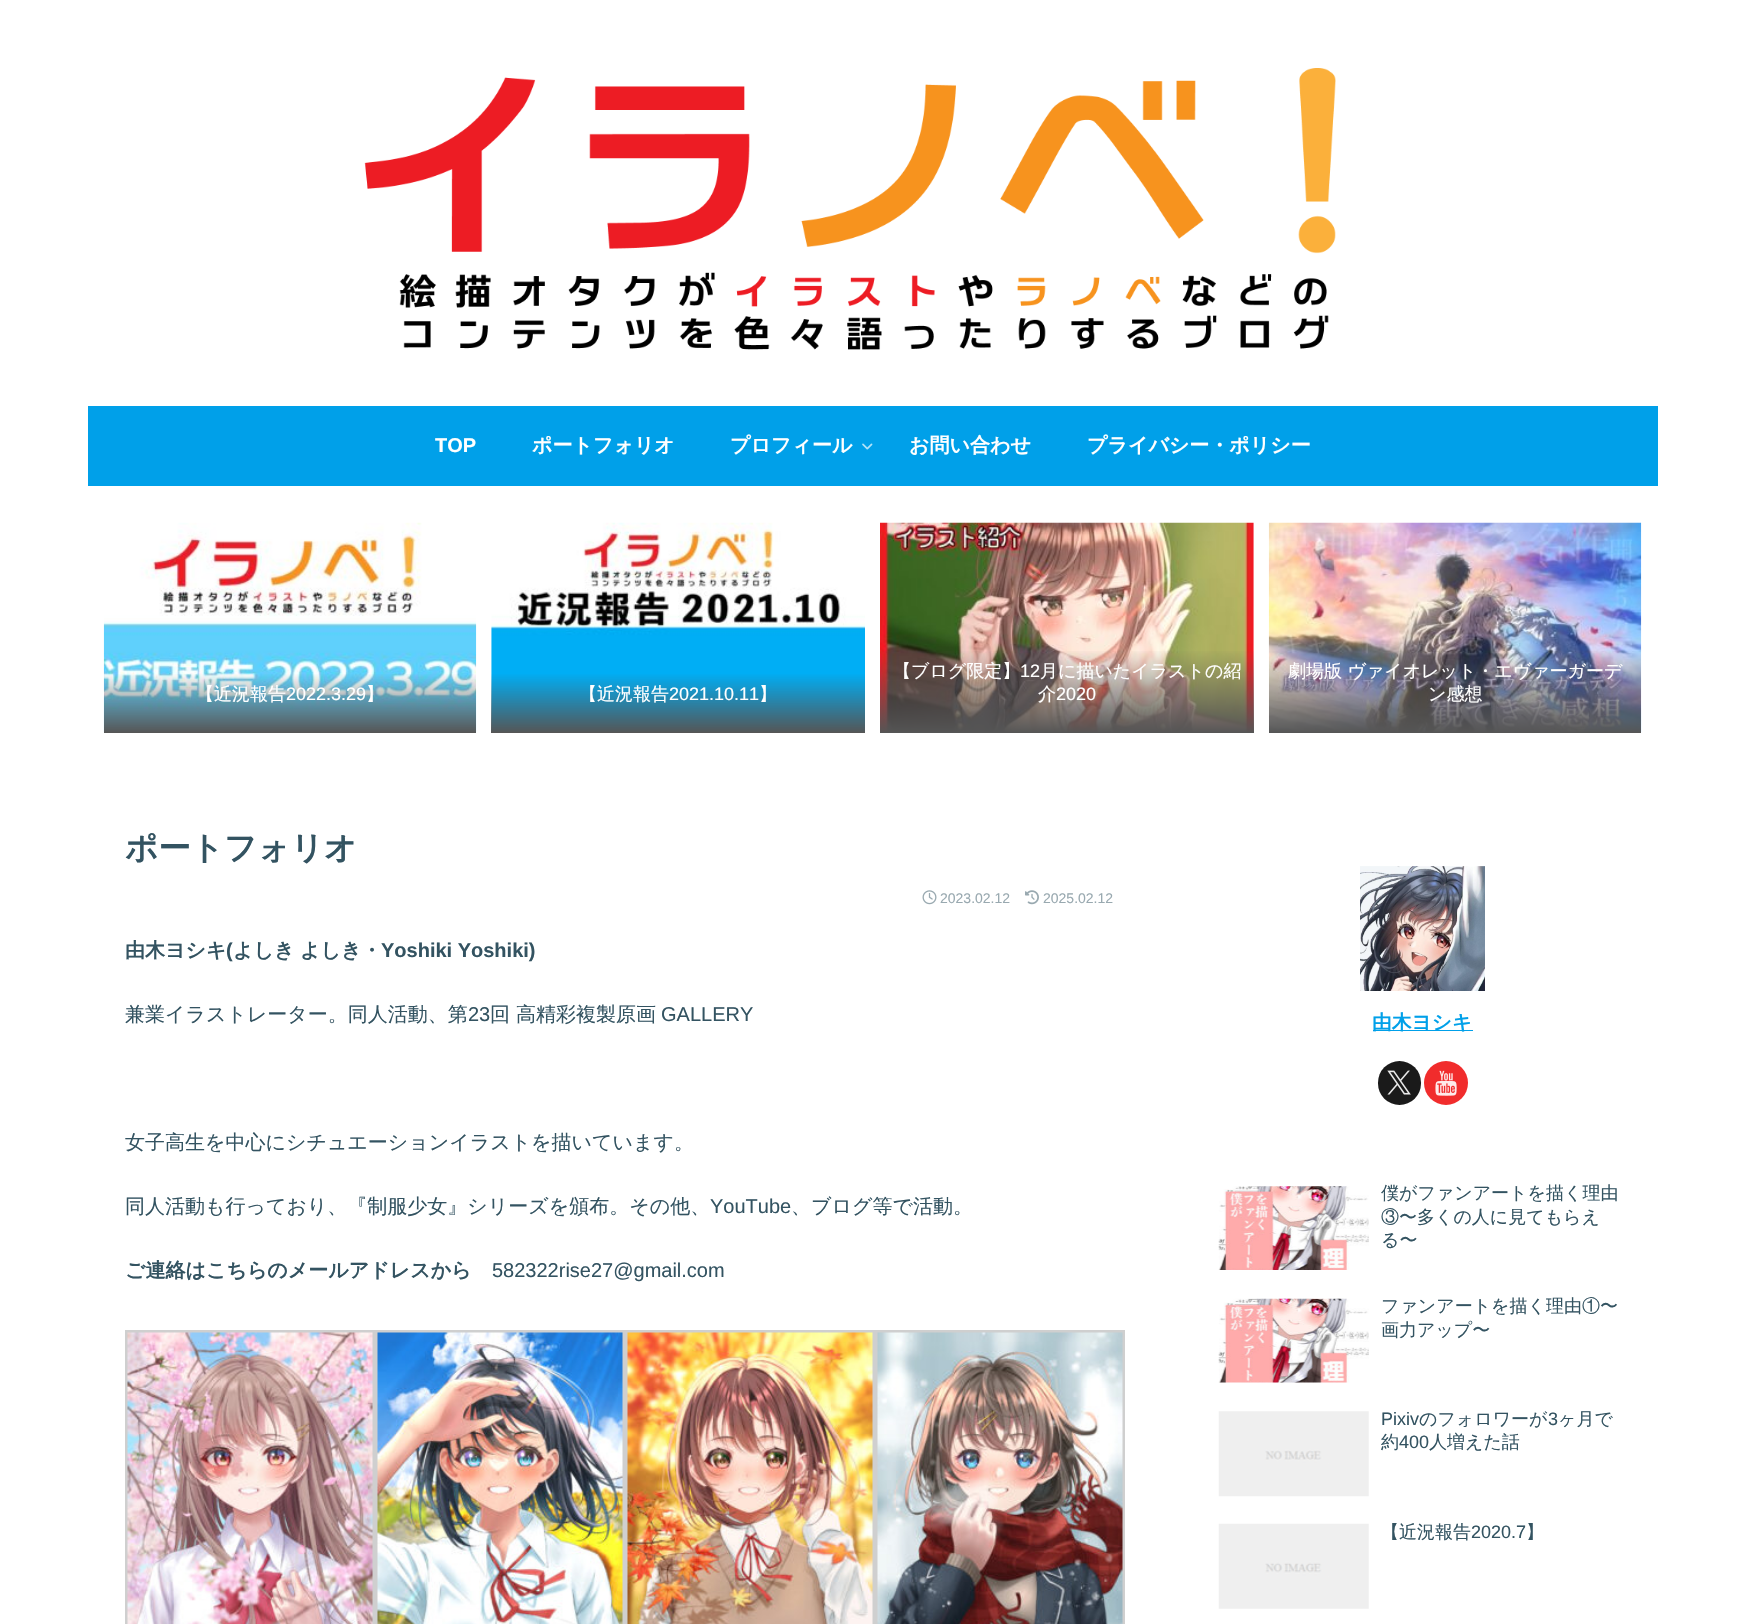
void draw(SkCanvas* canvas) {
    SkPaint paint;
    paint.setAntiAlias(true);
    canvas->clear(0xFFFFFFFF);
    canvas->drawImageRect(SkImages::DeferredFromEncodedData(SkData::MakeFromFileName("img1.png")), SkRect::MakeXYWH(364, 68, 972, 282), SkSamplingOptions());
    paint.setColor(0xFF00A0E9);
    canvas->drawRect(SkRect::MakeXYWH(88, 406, 1570, 80), paint);
    canvas->save();
    canvas->clipRect(SkRect::MakeXYWH(435, 429, 41, 36));
    SkFont font1(fontMgr->matchFamilyStyle("Liberation Sans", SkFontStyle::Bold()), 20);
    font1.setSubpixel(true);
    paint.setColor(0xFFFFFFFF);
    canvas->drawString("TOP", 435, 452, font1, paint);
    canvas->restore();
    SkFont font2(fontMgr->matchFamilyStyle("WenQuanYi Zen Hei", SkFontStyle::Bold()), 20);
    font2.setSubpixel(true);
    canvas->drawString("ポートフォリオ", 532, 452, font2, paint);
    canvas->drawString("プロフィール", 730, 452, font2, paint);
    canvas->drawImageRect(SkImages::DeferredFromEncodedData(SkData::MakeFromFileName("img2.png")), SkRect::MakeXYWH(862, 443, 11, 7), SkSamplingOptions());
    canvas->drawString("お問い合わせ", 909, 452, font2, paint);
    canvas->drawString("プライバシー・ポリシー", 1087, 452, font2, paint);
    canvas->drawImageRect(SkImages::DeferredFromEncodedData(SkData::MakeFromFileName("img3.png")), SkRect::MakeXYWH(103, 522, 374, 211), SkSamplingOptions());
    {
        const SkColor colors[] = {0x00555555, 0xFF555555};
        const float stops[] = {0, 1};
        const SkPoint ends[] = {{290, 673}, {290, 733}};
        paint.setShader(SkGradientShader::MakeLinear(ends, colors, stops, 2, SkTileMode::kClamp));
        paint.setAlpha(255);
    }
    canvas->drawRect(SkRect::MakeXYWH(104, 674, 372, 59), paint);
    SkFont font3(fontMgr->matchFamilyStyle("WenQuanYi Zen Hei", SkFontStyle(500, SkFontStyle::kNormal_Width, SkFontStyle::kUpright_Slant)), 18);
    font3.setSubpixel(true);
    paint.setShader(nullptr);
    paint.setColor(0xFFFFFFFF);
    canvas->drawString("【近況報告", 196, 700, font3, paint);
    SkFont font4(fontMgr->matchFamilyStyle("Liberation Sans", SkFontStyle::Normal()), 18);
    font4.setSubpixel(true);
    canvas->drawString("2022.3.29", 286, 700, font4, paint);
    canvas->drawString("】", 366, 700, font3, paint);
    canvas->drawImageRect(SkImages::DeferredFromEncodedData(SkData::MakeFromFileName("img4.png")), SkRect::MakeXYWH(491, 522, 374, 211), SkSamplingOptions());
    {
        const SkColor colors[] = {0x00555555, 0xFF555555};
        const float stops[] = {0, 1};
        const SkPoint ends[] = {{678, 673}, {678, 733}};
        paint.setShader(SkGradientShader::MakeLinear(ends, colors, stops, 2, SkTileMode::kClamp));
        paint.setAlpha(255);
    }
    canvas->drawRect(SkRect::MakeXYWH(491, 674, 374, 59), paint);
    paint.setShader(nullptr);
    paint.setColor(0xFFFFFFFF);
    canvas->drawString("【近況報告", 579, 700, font3, paint);
    canvas->drawString("2021.10.11", 669, 700, font4, paint);
    canvas->drawString("】", 759, 700, font3, paint);
    canvas->drawImageRect(SkImages::DeferredFromEncodedData(SkData::MakeFromFileName("img5.png")), SkRect::MakeXYWH(880, 522, 374, 211), SkSamplingOptions());
    {
        const SkColor colors[] = {0x00555555, 0xFF555555};
        const float stops[] = {0, 1};
        const SkPoint ends[] = {{1067, 649}, {1067, 733}};
        paint.setShader(SkGradientShader::MakeLinear(ends, colors, stops, 2, SkTileMode::kClamp));
        paint.setAlpha(255);
    }
    canvas->drawRect(SkRect::MakeXYWH(880, 651, 374, 82), paint);
    paint.setShader(nullptr);
    paint.setColor(0xFFFFFFFF);
    canvas->drawString("【ブログ限定】", 893, 677, font3, paint);
    canvas->drawString("12", 1020, 677, font4, paint);
    canvas->drawString("月に描いたイラストの紹", 1040, 677, font3, paint);
    canvas->drawString("介", 1038, 700, font3, paint);
    canvas->drawString("2020", 1056, 700, font4, paint);
    canvas->drawImageRect(SkImages::DeferredFromEncodedData(SkData::MakeFromFileName("img6.png")), SkRect::MakeXYWH(1268, 522, 374, 211), SkSamplingOptions());
    {
        const SkColor colors[] = {0x00555555, 0xFF555555};
        const float stops[] = {0, 1};
        const SkPoint ends[] = {{1455, 649}, {1455, 733}};
        paint.setShader(SkGradientShader::MakeLinear(ends, colors, stops, 2, SkTileMode::kClamp));
        paint.setAlpha(255);
    }
    canvas->drawRect(SkRect::MakeXYWH(1269, 651, 372, 82), paint);
    paint.setShader(nullptr);
    paint.setColor(0xFFFFFFFF);
    canvas->drawString("劇場版 ヴァイオレット・エヴァーガーデ", 1288, 677, font3, paint);
    canvas->drawString("ン感想", 1428, 700, font3, paint);
    SkFont font5(fontMgr->matchFamilyStyle("WenQuanYi Zen Hei", SkFontStyle::Bold()), 32.5f);
    font5.setSubpixel(true);
    paint.setColor(0xFF335361);
    canvas->drawString("ポートフォリオ", 125, 859, font5, paint);
    canvas->drawImageRect(SkImages::DeferredFromEncodedData(SkData::MakeFromFileName("img7.png")), SkRect::MakeXYWH(922, 890, 15, 15), SkSamplingOptions());
    SkFont font6(fontMgr->matchFamilyStyle("Liberation Sans", SkFontStyle::Normal()), 14);
    font6.setSubpixel(true);
    paint.setColor(0xFF99A9B0);
    canvas->drawString("2023.02.12", 940, 903, font6, paint);
    canvas->drawImageRect(SkImages::DeferredFromEncodedData(SkData::MakeFromFileName("img8.png")), SkRect::MakeXYWH(1025, 890, 14, 15), SkSamplingOptions());
    canvas->drawString("2025.02.12", 1043, 903, font6, paint);
    paint.setColor(0xFF335361);
    canvas->drawString("由木ヨシキ", 125, 957, font2, paint);
    canvas->drawString("(", 226, 957, font1, paint);
    canvas->drawString("よしき", 233, 957, font2, paint);
    canvas->drawString("よしき・", 300, 957, font2, paint);
    canvas->drawString("Yoshiki Yoshiki)", 381, 957, font1, paint);
    SkFont font7(fontMgr->matchFamilyStyle("WenQuanYi Zen Hei", SkFontStyle(500, SkFontStyle::kNormal_Width, SkFontStyle::kUpright_Slant)), 20);
    font7.setSubpixel(true);
    canvas->drawString("兼業イラストレーター。同人活動、第", 125, 1021, font7, paint);
    SkFont font8(fontMgr->matchFamilyStyle("Liberation Sans", SkFontStyle::Normal()), 20);
    font8.setSubpixel(true);
    canvas->drawString("23", 468, 1021, font8, paint);
    canvas->drawString("回 高精彩複製原画", 490, 1021, font7, paint);
    canvas->drawString("GALLERY", 661, 1021, font8, paint);
    canvas->drawString("女子高生を中心にシチュエーションイラストを描いています。", 125, 1149, font7, paint);
    canvas->drawString("同人活動も行っており、『制服少女』シリーズを頒布。その他、", 125, 1213, font7, paint);
    canvas->drawString("YouTube", 710, 1213, font8, paint);
    canvas->drawString("、ブログ等で活動。", 791, 1213, font7, paint);
    canvas->drawString("ご連絡はこちらのメールアドレスから", 125, 1277, font2, paint);
    canvas->drawString("582322rise27@gmail.com", 492, 1277, font8, paint);
    paint.setStyle(SkPaint::kStroke_Style);
    paint.setStrokeWidth(3);
    paint.setColor(0xFFCFCFCF);
    canvas->drawRect(SkRect::MakeXYWH(126.5f, 1331.5f, 247, 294), paint);
    canvas->drawImageRect(SkImages::DeferredFromEncodedData(SkData::MakeFromFileName("img9.png")), SkRect::MakeXYWH(127, 1332, 246, 292), SkSamplingOptions());
    canvas->drawRect(SkRect::MakeXYWH(376.5f, 1331.5f, 247, 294), paint);
    canvas->drawImageRect(SkImages::DeferredFromEncodedData(SkData::MakeFromFileName("img10.png")), SkRect::MakeXYWH(377, 1332, 246, 292), SkSamplingOptions());
    canvas->drawRect(SkRect::MakeXYWH(626.5f, 1331.5f, 247, 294), paint);
    canvas->drawImageRect(SkImages::DeferredFromEncodedData(SkData::MakeFromFileName("img11.png")), SkRect::MakeXYWH(627, 1332, 246, 292), SkSamplingOptions());
    canvas->drawRect(SkRect::MakeXYWH(876.5f, 1331.5f, 247, 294), paint);
    canvas->drawImageRect(SkImages::DeferredFromEncodedData(SkData::MakeFromFileName("img12.png")), SkRect::MakeXYWH(877, 1332, 246, 292), SkSamplingOptions());
    canvas->drawImageRect(SkImages::DeferredFromEncodedData(SkData::MakeFromFileName("img13.png")), SkRect::MakeXYWH(1360, 866, 125, 125), SkSamplingOptions());
    paint.setStyle(SkPaint::kFill_Style);
    paint.setColor(0xFF00A0E9);
    canvas->drawRect(SkRect::MakeXYWH(1373, 1030, 100, 1), paint);
    SkFont font9(fontMgr->matchFamilyStyle("WenQuanYi Zen Hei", SkFontStyle::Bold()), 19.75f);
    font9.setSubpixel(true);
    canvas->drawString("由木ヨシキ", 1372, 1029, font9, paint);
    paint.setColor(0xFF1A1A1A);
    canvas->drawRoundRect(SkRect::MakeXYWH(1378, 1061, 43, 44), 21.5f, 21.5f, paint);
    canvas->drawImageRect(SkImages::DeferredFromEncodedData(SkData::MakeFromFileName("img14.png")), SkRect::MakeXYWH(1387, 1070, 24, 25), SkSamplingOptions());
    paint.setColor(0xFFF12C2C);
    canvas->drawCircle(1446, 1083, 22, paint);
    canvas->drawImageRect(SkImages::DeferredFromEncodedData(SkData::MakeFromFileName("img15.png")), SkRect::MakeXYWH(1435, 1070, 22, 26), SkSamplingOptions());
    canvas->drawImageRect(SkImages::DeferredFromEncodedData(SkData::MakeFromFileName("img16.png")), SkRect::MakeXYWH(1218, 1186, 151, 84), SkSamplingOptions());
    paint.setColor(0xFF335361);
    canvas->drawString("僕がファンアートを描く理由", 1381, 1199, font3, paint);
    canvas->drawString("③〜多くの人に見てもらえ", 1381, 1223, font3, paint);
    canvas->drawString("る〜", 1381, 1246, font3, paint);
    canvas->drawImageRect(SkImages::DeferredFromEncodedData(SkData::MakeFromFileName("img17.png")), SkRect::MakeXYWH(1218, 1298, 151, 85), SkSamplingOptions());
    canvas->drawString("ファンアートを描く理由①〜", 1381, 1312, font3, paint);
    canvas->drawString("画力アップ〜", 1381, 1336, font3, paint);
    canvas->drawImageRect(SkImages::DeferredFromEncodedData(SkData::MakeFromFileName("img18.png")), SkRect::MakeXYWH(1218, 1411, 151, 86), SkSamplingOptions());
    canvas->drawString("Pixiv", 1381, 1425, font4, paint);
    canvas->drawString("のフォロワーが", 1419, 1425, font3, paint);
    canvas->drawString("3", 1548, 1425, font4, paint);
    canvas->drawString("ヶ月で", 1558, 1425, font3, paint);
    canvas->drawString("約", 1381, 1448, font3, paint);
    canvas->drawString("400", 1399, 1448, font4, paint);
    canvas->drawString("人増えた話", 1429, 1448, font3, paint);
    canvas->drawImageRect(SkImages::DeferredFromEncodedData(SkData::MakeFromFileName("img19.png")), SkRect::MakeXYWH(1218, 1523, 151, 86), SkSamplingOptions());
    canvas->drawString("【近況報告", 1381, 1538, font3, paint);
    canvas->drawString("2020.7", 1471, 1538, font4, paint);
    canvas->drawString("】", 1526, 1538, font3, paint);
}
